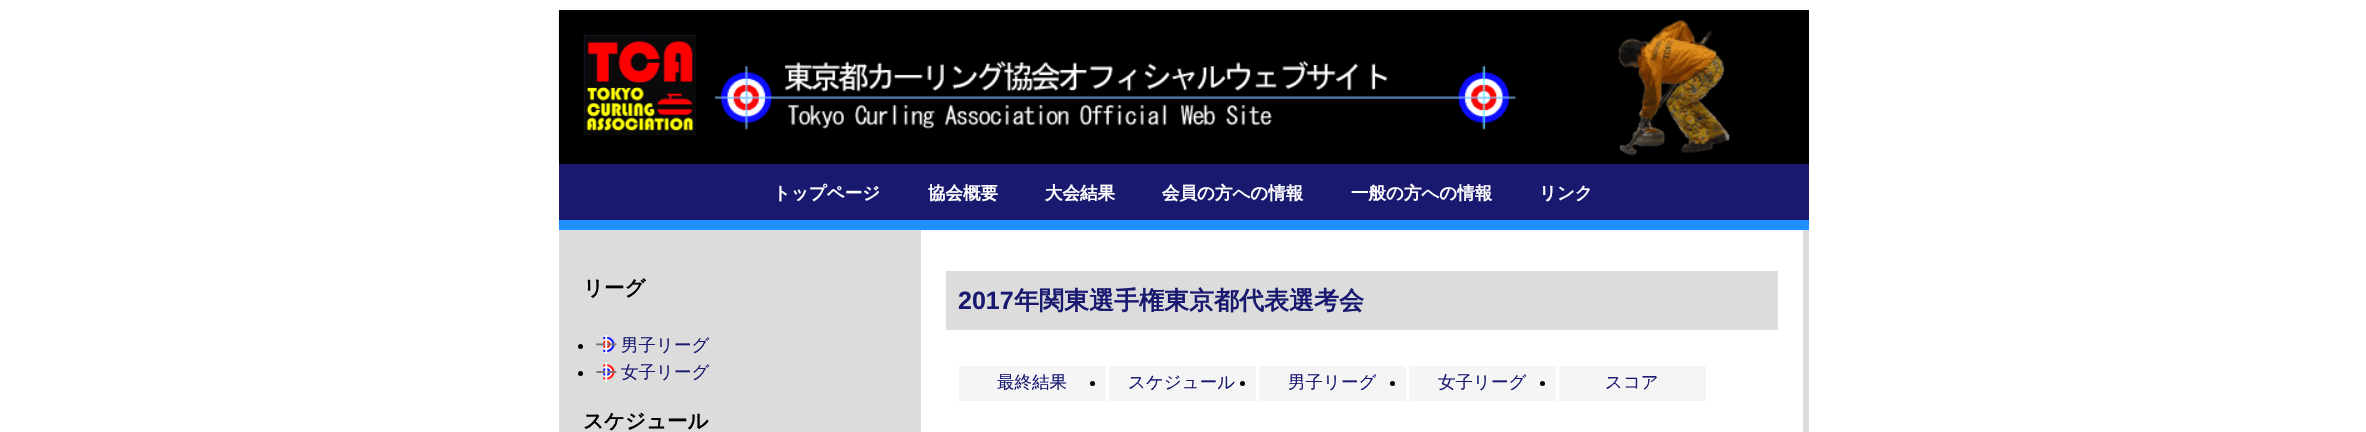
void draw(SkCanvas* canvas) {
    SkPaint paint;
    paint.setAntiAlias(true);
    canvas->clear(0xFFFFFFFF);
    paint.setColor(0xFF000000);
    canvas->drawRect(SkRect::MakeXYWH(559, 10, 1250, 154), paint);
    canvas->drawImageRect(SkImages::DeferredFromEncodedData(SkData::MakeFromFileName("img1.png")), SkRect::MakeXYWH(558, 10, 1173, 150), SkSamplingOptions());
    canvas->drawImageRect(SkImages::DeferredFromEncodedData(SkData::MakeFromFileName("img2.png")), SkRect::MakeXYWH(583, 35, 114, 100), SkSamplingOptions());
    paint.setColor(0xFF191970);
    canvas->drawRect(SkRect::MakeXYWH(559, 164, 1250, 56), paint);
    paint.setColor(0xFF1E90FF);
    canvas->drawRect(SkRect::MakeXYWH(559, 220, 1250, 10), paint);
    SkFont font1(fontMgr->matchFamilyStyle("WenQuanYi Zen Hei", SkFontStyle::Bold()), 17.5f);
    font1.setSubpixel(true);
    paint.setColor(0xFFFFFFFF);
    canvas->drawString("トップページ", 773, 199, font1, paint);
    canvas->drawString("協会概要", 928, 199, font1, paint);
    canvas->drawString("大会結果", 1045, 199, font1, paint);
    canvas->drawString("会員の方への情報", 1162, 199, font1, paint);
    canvas->drawString("一般の方への情報", 1351, 199, font1, paint);
    canvas->drawString("リンク", 1539, 199, font1, paint);
    paint.setColor(0xFFDCDCDC);
    canvas->drawRect(SkRect::MakeXYWH(559, 230, 1250, 202), paint);
    SkFont font2(fontMgr->matchFamilyStyle("WenQuanYi Zen Hei", SkFontStyle::Bold()), 20.5f);
    font2.setSubpixel(true);
    paint.setColor(0xFF000000);
    canvas->drawString("リーグ", 583, 295, font2, paint);
    canvas->drawImageRect(SkImages::DeferredFromEncodedData(SkData::MakeFromFileName("img3.png")), SkRect::MakeXYWH(596, 335, 21, 19), SkSamplingOptions());
    canvas->drawCircle(580.5f, 346.5f, 2.5f, paint);
    SkFont font3(fontMgr->matchFamilyStyle("WenQuanYi Zen Hei", SkFontStyle(500, SkFontStyle::kNormal_Width, SkFontStyle::kUpright_Slant)), 17.5f);
    font3.setSubpixel(true);
    paint.setColor(0xFF191970);
    canvas->drawString("男子リーグ", 621, 351, font3, paint);
    canvas->drawImageRect(SkImages::DeferredFromEncodedData(SkData::MakeFromFileName("img4.png")), SkRect::MakeXYWH(596, 362, 21, 20), SkSamplingOptions());
    paint.setColor(0xFF000000);
    canvas->drawCircle(580.5f, 373.5f, 2.5f, paint);
    paint.setColor(0xFF191970);
    canvas->drawString("女子リーグ", 621, 378, font3, paint);
    paint.setColor(0xFF000000);
    canvas->drawString("スケジュール", 583, 428, font2, paint);
    paint.setColor(0xFFFFFFFF);
    canvas->drawRect(SkRect::MakeXYWH(921, 230, 882, 202), paint);
    paint.setColor(0xFFDCDCDC);
    canvas->drawRect(SkRect::MakeXYWH(946, 271, 832, 59), paint);
    SkFont font4(fontMgr->matchFamilyStyle("Liberation Sans", SkFontStyle::Bold()), 25);
    font4.setSubpixel(true);
    paint.setColor(0xFF191970);
    canvas->drawString("2017", 958, 309, font4, paint);
    SkFont font5(fontMgr->matchFamilyStyle("WenQuanYi Zen Hei", SkFontStyle::Bold()), 25);
    font5.setSubpixel(true);
    canvas->drawString("年関東選手権東京都代表選考会", 1014, 309, font5, paint);
    paint.setColor(0xFFF5F5F5);
    canvas->drawRect(SkRect::MakeXYWH(959, 366, 147, 35), paint);
    paint.setColor(0xFF191970);
    canvas->drawString("最終結果", 997, 388, font3, paint);
    paint.setColor(0xFF000000);
    canvas->drawCircle(1092.5f, 383.5f, 2.5f, paint);
    paint.setColor(0xFFF5F5F5);
    canvas->drawRect(SkRect::MakeXYWH(1109, 366, 147, 35), paint);
    paint.setColor(0xFF191970);
    canvas->drawString("スケジュール", 1128, 388, font3, paint);
    paint.setColor(0xFF000000);
    canvas->drawCircle(1242.5f, 383.5f, 2.5f, paint);
    paint.setColor(0xFFF5F5F5);
    canvas->drawRect(SkRect::MakeXYWH(1259, 366, 147, 35), paint);
    paint.setColor(0xFF191970);
    canvas->drawString("男子リーグ", 1288, 388, font3, paint);
    paint.setColor(0xFF000000);
    canvas->drawCircle(1392.5f, 383.5f, 2.5f, paint);
    paint.setColor(0xFFF5F5F5);
    canvas->drawRect(SkRect::MakeXYWH(1409, 366, 147, 35), paint);
    paint.setColor(0xFF191970);
    canvas->drawString("女子リーグ", 1438, 388, font3, paint);
    paint.setColor(0xFF000000);
    canvas->drawCircle(1542.5f, 383.5f, 2.5f, paint);
    paint.setColor(0xFFF5F5F5);
    canvas->drawRect(SkRect::MakeXYWH(1559, 366, 147, 35), paint);
    paint.setColor(0xFF191970);
    canvas->drawString("スコア", 1605, 388, font3, paint);
}
